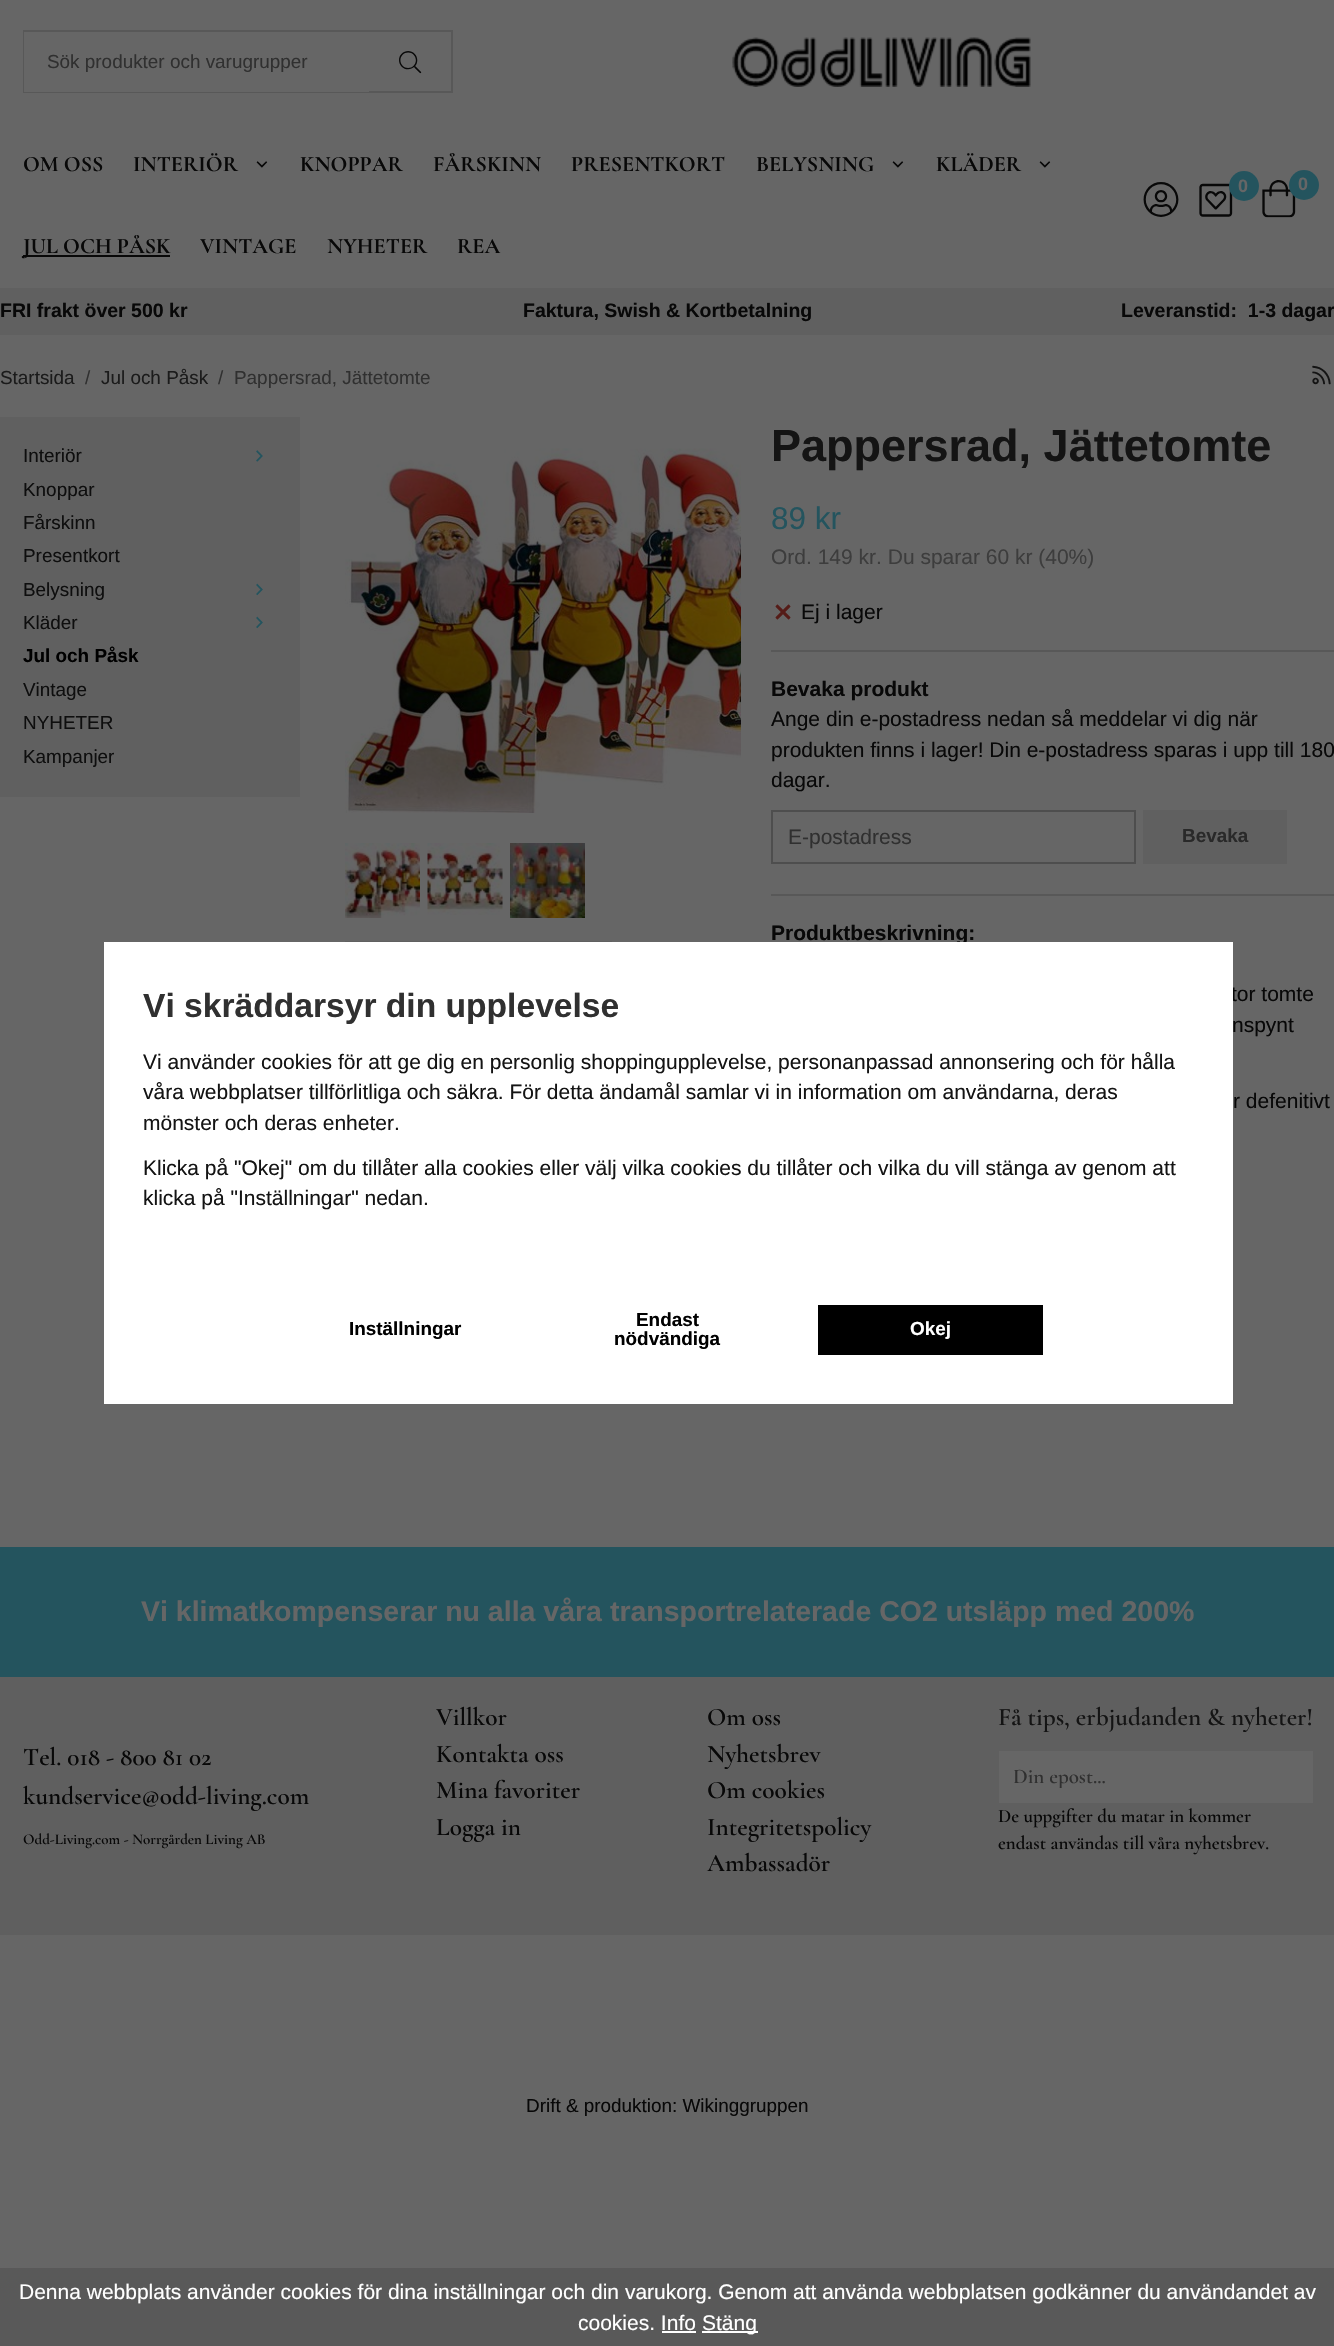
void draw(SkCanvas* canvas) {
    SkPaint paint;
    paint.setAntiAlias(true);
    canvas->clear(0xFF666666);
    paint.setStyle(SkPaint::kStroke_Style);
    paint.setStrokeWidth(2);
    paint.setColor(0xFF585858);
    canvas->drawRect(SkRect::MakeXYWH(24, 31, 428, 61), paint);
    paint.setStyle(SkPaint::kFill_Style);
    paint.setColor(0xFF666666);
    canvas->drawRect(SkRect::MakeXYWH(24, 32, 345, 60), paint);
    SkFont font1(fontMgr->matchFamilyStyle("Liberation Sans", SkFontStyle::Normal()), 18.9f);
    font1.setSubpixel(true);
    paint.setColor(0xFF303030);
    canvas->drawString("Sök produkter och varugrupper", 47, 68, font1, paint);
    canvas->drawImageRect(SkImages::DeferredFromEncodedData(SkData::MakeFromFileName("img1.png")), SkRect::MakeXYWH(399, 51, 23, 23), SkSamplingOptions());
    canvas->drawImageRect(SkImages::DeferredFromEncodedData(SkData::MakeFromFileName("img2.png")), SkRect::MakeXYWH(732, 37, 299, 50), SkSamplingOptions());
    SkFont font2(fontMgr->matchFamilyStyle("Cormorant Garamond", SkFontStyle::Bold()), 22);
    font2.setSubpixel(true);
    paint.setColor(0xFF080808);
    canvas->drawString("OM OSS", 23, 171, font2, paint);
    canvas->drawString("INTERIÖR", 133, 171, font2, paint);
    canvas->drawImageRect(SkImages::DeferredFromEncodedData(SkData::MakeFromFileName("img3.png")), SkRect::MakeXYWH(256, 161, 12, 7), SkSamplingOptions());
    canvas->drawString("KNOPPAR", 300, 171, font2, paint);
    canvas->drawString("FÅRSKINN", 433, 171, font2, paint);
    canvas->drawString("PRESENTKORT", 571, 171, font2, paint);
    canvas->drawString("BELYSNING", 756, 171, font2, paint);
    canvas->drawImageRect(SkImages::DeferredFromEncodedData(SkData::MakeFromFileName("img3.png")), SkRect::MakeXYWH(892, 161, 12, 7), SkSamplingOptions());
    canvas->drawString("KLÄDER", 936, 171, font2, paint);
    canvas->drawImageRect(SkImages::DeferredFromEncodedData(SkData::MakeFromFileName("img3.png")), SkRect::MakeXYWH(1039, 161, 12, 7), SkSamplingOptions());
    canvas->drawRect(SkRect::MakeXYWH(23, 255, 147, 2), paint);
    canvas->drawString("JUL OCH PÅSK", 23, 253, font2, paint);
    canvas->drawString("VINTAGE", 200, 253, font2, paint);
    canvas->drawString("NYHETER", 327, 253, font2, paint);
    canvas->drawString("REA", 457, 253, font2, paint);
    canvas->drawImageRect(SkImages::DeferredFromEncodedData(SkData::MakeFromFileName("img4.png")), SkRect::MakeXYWH(1143, 182, 36, 35), SkSamplingOptions());
    canvas->drawImageRect(SkImages::DeferredFromEncodedData(SkData::MakeFromFileName("img5.png")), SkRect::MakeXYWH(1199, 183, 34, 34), SkSamplingOptions());
    paint.setColor(0xFF24545E);
    canvas->drawCircle(1244, 186, 15, paint);
    SkFont font3(fontMgr->matchFamilyStyle("Liberation Sans", SkFontStyle::Bold()), 18);
    font3.setSubpixel(true);
    paint.setColor(0xFF666666);
    canvas->drawString("0", 1238, 192, font3, paint);
    canvas->drawImageRect(SkImages::DeferredFromEncodedData(SkData::MakeFromFileName("img6.png")), SkRect::MakeXYWH(1262, 180, 34, 38), SkSamplingOptions());
    paint.setColor(0xFF24545E);
    canvas->drawCircle(1304, 185, 15, paint);
    paint.setColor(0xFF666666);
    canvas->drawString("0", 1298, 190, font3, paint);
    paint.setColor(0xFF606060);
    canvas->drawRect(SkRect::MakeXYWH(0, 288, 1334, 47), paint);
    SkFont font4(fontMgr->matchFamilyStyle("Liberation Sans", SkFontStyle::Bold()), 19.5f);
    font4.setSubpixel(true);
    paint.setColor(0xFF080808);
    canvas->drawString("FRI frakt över 500 kr", 0, 317, font4, paint);
    canvas->drawString("Faktura, Swish & Kortbetalning", 523, 317, font4, paint);
    canvas->drawString("Leveranstid:  1-3 dagar", 1121, 317, font4, paint);
    paint.setColor(0xFF1B1B1B);
    canvas->drawString("Startsida", 0, 384, font1, paint);
    paint.setColor(0xFF303030);
    canvas->drawString("/", 85, 384, font1, paint);
    paint.setColor(0xFF1B1B1B);
    canvas->drawString("Jul och Påsk", 101, 384, font1, paint);
    paint.setColor(0xFF303030);
    canvas->drawString("/", 218, 384, font1, paint);
    canvas->drawString("Pappersrad, Jättetomte", 234, 384, font1, paint);
    canvas->drawImageRect(SkImages::DeferredFromEncodedData(SkData::MakeFromFileName("img7.png")), SkRect::MakeXYWH(1312, 365, 19, 20), SkSamplingOptions());
    paint.setColor(0xFF606060);
    canvas->drawRect(SkRect::MakeXYWH(0, 417, 300, 380), paint);
    paint.setColor(0xFF0E0E0E);
    canvas->drawString("Interiör", 23, 462, font1, paint);
    canvas->drawImageRect(SkImages::DeferredFromEncodedData(SkData::MakeFromFileName("img8.png")), SkRect::MakeXYWH(256, 450, 7, 12), SkSamplingOptions());
    canvas->drawString("Knoppar", 23, 496, font1, paint);
    canvas->drawString("Fårskinn", 23, 529, font1, paint);
    canvas->drawString("Presentkort", 23, 562, font1, paint);
    canvas->drawString("Belysning", 23, 596, font1, paint);
    canvas->drawImageRect(SkImages::DeferredFromEncodedData(SkData::MakeFromFileName("img9.png")), SkRect::MakeXYWH(256, 583, 7, 13), SkSamplingOptions());
    canvas->drawString("Kläder", 23, 629, font1, paint);
    canvas->drawImageRect(SkImages::DeferredFromEncodedData(SkData::MakeFromFileName("img9.png")), SkRect::MakeXYWH(256, 616, 7, 13), SkSamplingOptions());
    SkFont font5(fontMgr->matchFamilyStyle("Liberation Sans", SkFontStyle::Bold()), 18.9f);
    font5.setSubpixel(true);
    paint.setColor(0xFF000000);
    canvas->drawString("Jul och Påsk", 23, 662, font5, paint);
    paint.setColor(0xFF0E0E0E);
    canvas->drawString("Vintage", 23, 696, font1, paint);
    canvas->drawString("NYHETER", 23, 729, font1, paint);
    canvas->drawString("Kampanjer", 23, 763, font1, paint);
    canvas->drawImageRect(SkImages::DeferredFromEncodedData(SkData::MakeFromFileName("img10.png")), SkRect::MakeXYWH(345, 448, 396, 365), SkSamplingOptions());
    canvas->drawImageRect(SkImages::DeferredFromEncodedData(SkData::MakeFromFileName("img11.png")), SkRect::MakeXYWH(345, 843, 75, 75), SkSamplingOptions());
    canvas->drawImageRect(SkImages::DeferredFromEncodedData(SkData::MakeFromFileName("img12.png")), SkRect::MakeXYWH(427, 843, 76, 72), SkSamplingOptions());
    canvas->drawImageRect(SkImages::DeferredFromEncodedData(SkData::MakeFromFileName("img13.png")), SkRect::MakeXYWH(510, 843, 75, 75), SkSamplingOptions());
    SkFont font6(fontMgr->matchFamilyStyle("Liberation Sans", SkFontStyle::Bold()), 45);
    font6.setSubpixel(true);
    paint.setColor(0xFF141414);
    canvas->drawString("Pappersrad, Jättetomte", 771, 461, font6, paint);
    SkFont font7(fontMgr->matchFamilyStyle("Liberation Sans", SkFontStyle::Normal()), 31.5f);
    font7.setSubpixel(true);
    paint.setColor(0xFF24545E);
    canvas->drawString("89 kr", 771, 529, font7, paint);
    SkFont font8(fontMgr->matchFamilyStyle("Liberation Sans", SkFontStyle::Normal()), 21);
    font8.setSubpixel(true);
    paint.setColor(0xFF3D3D3D);
    canvas->drawString("Ord. 149 kr. Du sparar 60 kr (40%)", 771, 564, font8, paint);
    canvas->drawImageRect(SkImages::DeferredFromEncodedData(SkData::MakeFromFileName("img14.png")), SkRect::MakeXYWH(775, 604, 16, 16), SkSamplingOptions());
    paint.setColor(0xFF080808);
    canvas->drawString("Ej i lager", 801, 619, font8, paint);
    paint.setColor(0xFF585858);
    canvas->drawRect(SkRect::MakeXYWH(771, 650, 563, 2), paint);
    canvas->drawRect(SkRect::MakeXYWH(771, 894, 563, 2), paint);
    SkFont font9(fontMgr->matchFamilyStyle("Liberation Sans", SkFontStyle::Bold()), 21);
    font9.setSubpixel(true);
    paint.setColor(0xFF080808);
    canvas->drawString("Bevaka produkt", 771, 696, font9, paint);
    canvas->drawString("Ange din e-postadress nedan så meddelar vi dig när", 771, 726, font8, paint);
    canvas->drawString("produkten finns i lager! Din e-postadress sparas i upp till 180", 771, 757, font8, paint);
    canvas->drawString("dagar.", 771, 787, font8, paint);
    paint.setStyle(SkPaint::kStroke_Style);
    paint.setColor(0xFF4E4E4E);
    canvas->drawRect(SkRect::MakeXYWH(772, 811, 363, 52), paint);
    paint.setStyle(SkPaint::kFill_Style);
    paint.setColor(0xFF303030);
    canvas->drawString("E-postadress", 788, 844, font8, paint);
    paint.setColor(0xFF606060);
    canvas->drawRect(SkRect::MakeXYWH(1143, 810, 144, 54), paint);
    paint.setColor(0xFF292929);
    canvas->drawString("Bevaka", 1182, 842, font5, paint);
    paint.setColor(0xFF080808);
    canvas->drawString("Produktbeskrivning:", 771, 940, font9, paint);
    canvas->drawString("tor tomte", 1231, 1001, font8, paint);
    canvas->drawString("nspynt", 1232, 1032, font8, paint);
    canvas->drawString("r defenitivt", 1233, 1108, font8, paint);
    paint.setColor(0xFF606060);
    canvas->drawRect(SkRect::MakeXYWH(345, 941, 267, 1), paint);
    paint.setColor(0xFF24545E);
    canvas->drawRect(SkRect::MakeXYWH(0, 1547, 1334, 130), paint);
    SkFont font10(fontMgr->matchFamilyStyle("Liberation Sans", SkFontStyle::Bold()), 28.5f);
    font10.setSubpixel(true);
    paint.setColor(0xFF666666);
    canvas->drawString("Vi klimatkompenserar nu alla våra transportrelaterade CO2 utsläpp med 200%", 141, 1621, font10, paint);
    paint.setColor(0xFF5F5F5F);
    canvas->drawRect(SkRect::MakeXYWH(0, 1677, 1334, 258), paint);
    SkFont font11(fontMgr->matchFamilyStyle("Cormorant Garamond", SkFontStyle(600, SkFontStyle::kNormal_Width, SkFontStyle::kUpright_Slant)), 25.25f);
    font11.setSubpixel(true);
    paint.setColor(0xFF080808);
    canvas->drawString("Tel. 018 - 800 81 02", 23, 1765, font11, paint);
    canvas->drawString("kundservice@odd-living.com", 23, 1804, font11, paint);
    SkFont font12(fontMgr->matchFamilyStyle("Cormorant Garamond", SkFontStyle(600, SkFontStyle::kNormal_Width, SkFontStyle::kUpright_Slant)), 15);
    font12.setSubpixel(true);
    canvas->drawString("Odd-Living.com - Norrgården Living AB", 23, 1844, font12, paint);
    canvas->drawString("Villkor", 436, 1725, font11, paint);
    canvas->drawString("Kontakta oss", 436, 1762, font11, paint);
    canvas->drawString("Mina favoriter", 436, 1798, font11, paint);
    canvas->drawString("Logga in", 436, 1835, font11, paint);
    canvas->drawString("Om oss", 707, 1725, font11, paint);
    canvas->drawString("Nyhetsbrev", 707, 1762, font11, paint);
    canvas->drawString("Om cookies", 707, 1798, font11, paint);
    canvas->drawString("Integritetspolicy", 707, 1835, font11, paint);
    canvas->drawString("Ambassadör", 707, 1871, font11, paint);
    paint.setColor(0xFF141414);
    canvas->drawString("Få tips, erbjudanden & nyheter!", 998, 1725, font11, paint);
    paint.setColor(0xFF666666);
    canvas->drawRect(SkRect::MakeXYWH(999, 1751, 314, 52), paint);
    canvas->save();
    canvas->clipRect(SkRect::MakeXYWH(1014, 1763, 284, 25));
    SkFont font13(fontMgr->matchFamilyStyle("Cormorant Garamond", SkFontStyle(600, SkFontStyle::kNormal_Width, SkFontStyle::kUpright_Slant)), 21);
    font13.setSubpixel(true);
    paint.setColor(0xFF303030);
    canvas->drawString("Din epost...", 1013, 1783, font13, paint);
    canvas->restore();
    SkFont font14(fontMgr->matchFamilyStyle("Cormorant Garamond", SkFontStyle(600, SkFontStyle::kNormal_Width, SkFontStyle::kUpright_Slant)), 18.9f);
    font14.setSubpixel(true);
    paint.setColor(0xFF080808);
    canvas->drawString("De uppgifter du matar in kommer", 998, 1822, font14, paint);
    canvas->drawString("endast användas till våra nyhetsbrev.", 998, 1849, font14, paint);
    canvas->drawString("Drift & produktion: Wikinggruppen", 526, 2112, font1, paint);
    paint.setColor(0xFFFFFFFF);
    canvas->drawRect(SkRect::MakeXYWH(104, 942, 1129, 462), paint);
    SkFont font15(fontMgr->matchFamilyStyle("Liberation Sans", SkFontStyle::Bold()), 33.6f);
    font15.setSubpixel(true);
    paint.setColor(0xFF303030);
    canvas->drawString("Vi skräddarsyr din upplevelse", 143, 1017, font15, paint);
    paint.setColor(0xFF141414);
    canvas->drawString("Vi använder cookies för att ge dig en personlig shoppingupplevelse, personanpassad annonsering och för hålla", 143, 1069, font8, paint);
    canvas->drawString("våra webbplatser tillförlitliga och säkra. För detta ändamål samlar vi in information om användarna, deras", 143, 1099, font8, paint);
    canvas->drawString("mönster och deras enheter.", 143, 1130, font8, paint);
    canvas->drawString("Klicka på \"Okej\" om du tillåter alla cookies eller välj vilka cookies du tillåter och vilka du vill stänga av genom att", 143, 1175, font8, paint);
    canvas->drawString("klicka på \"Inställningar\" nedan.", 143, 1205, font8, paint);
    paint.setColor(0xFF000000);
    canvas->drawString("Inställningar", 349, 1335, font5, paint);
    canvas->drawString("Endast", 636, 1326, font5, paint);
    canvas->drawString("nödvändiga", 614, 1345, font5, paint);
    canvas->drawRect(SkRect::MakeXYWH(818, 1305, 225, 50), paint);
    paint.setColor(0xFFFFFFFF);
    canvas->drawString("Okej", 910, 1335, font5, paint);
    paint.setColor(0xFF595959);
    canvas->drawRect(SkRect::MakeXYWH(0, 2268, 1334, 78), paint);
    paint.setColor(0xFFFFFFFF);
    canvas->drawString("Denna webbplats använder cookies för dina inställningar och din varukorg. Genom att använda webbplatsen godkänner du användandet av", 19, 2299, font8, paint);
    canvas->drawString("cookies. Info", 578, 2330, font8, paint);
    canvas->drawRect(SkRect::MakeXYWH(702, 2331, 56, 2), paint);
    canvas->drawString("Stäng", 702, 2330, font8, paint);
    canvas->drawRect(SkRect::MakeXYWH(662, 2331, 34, 2), paint);
}
